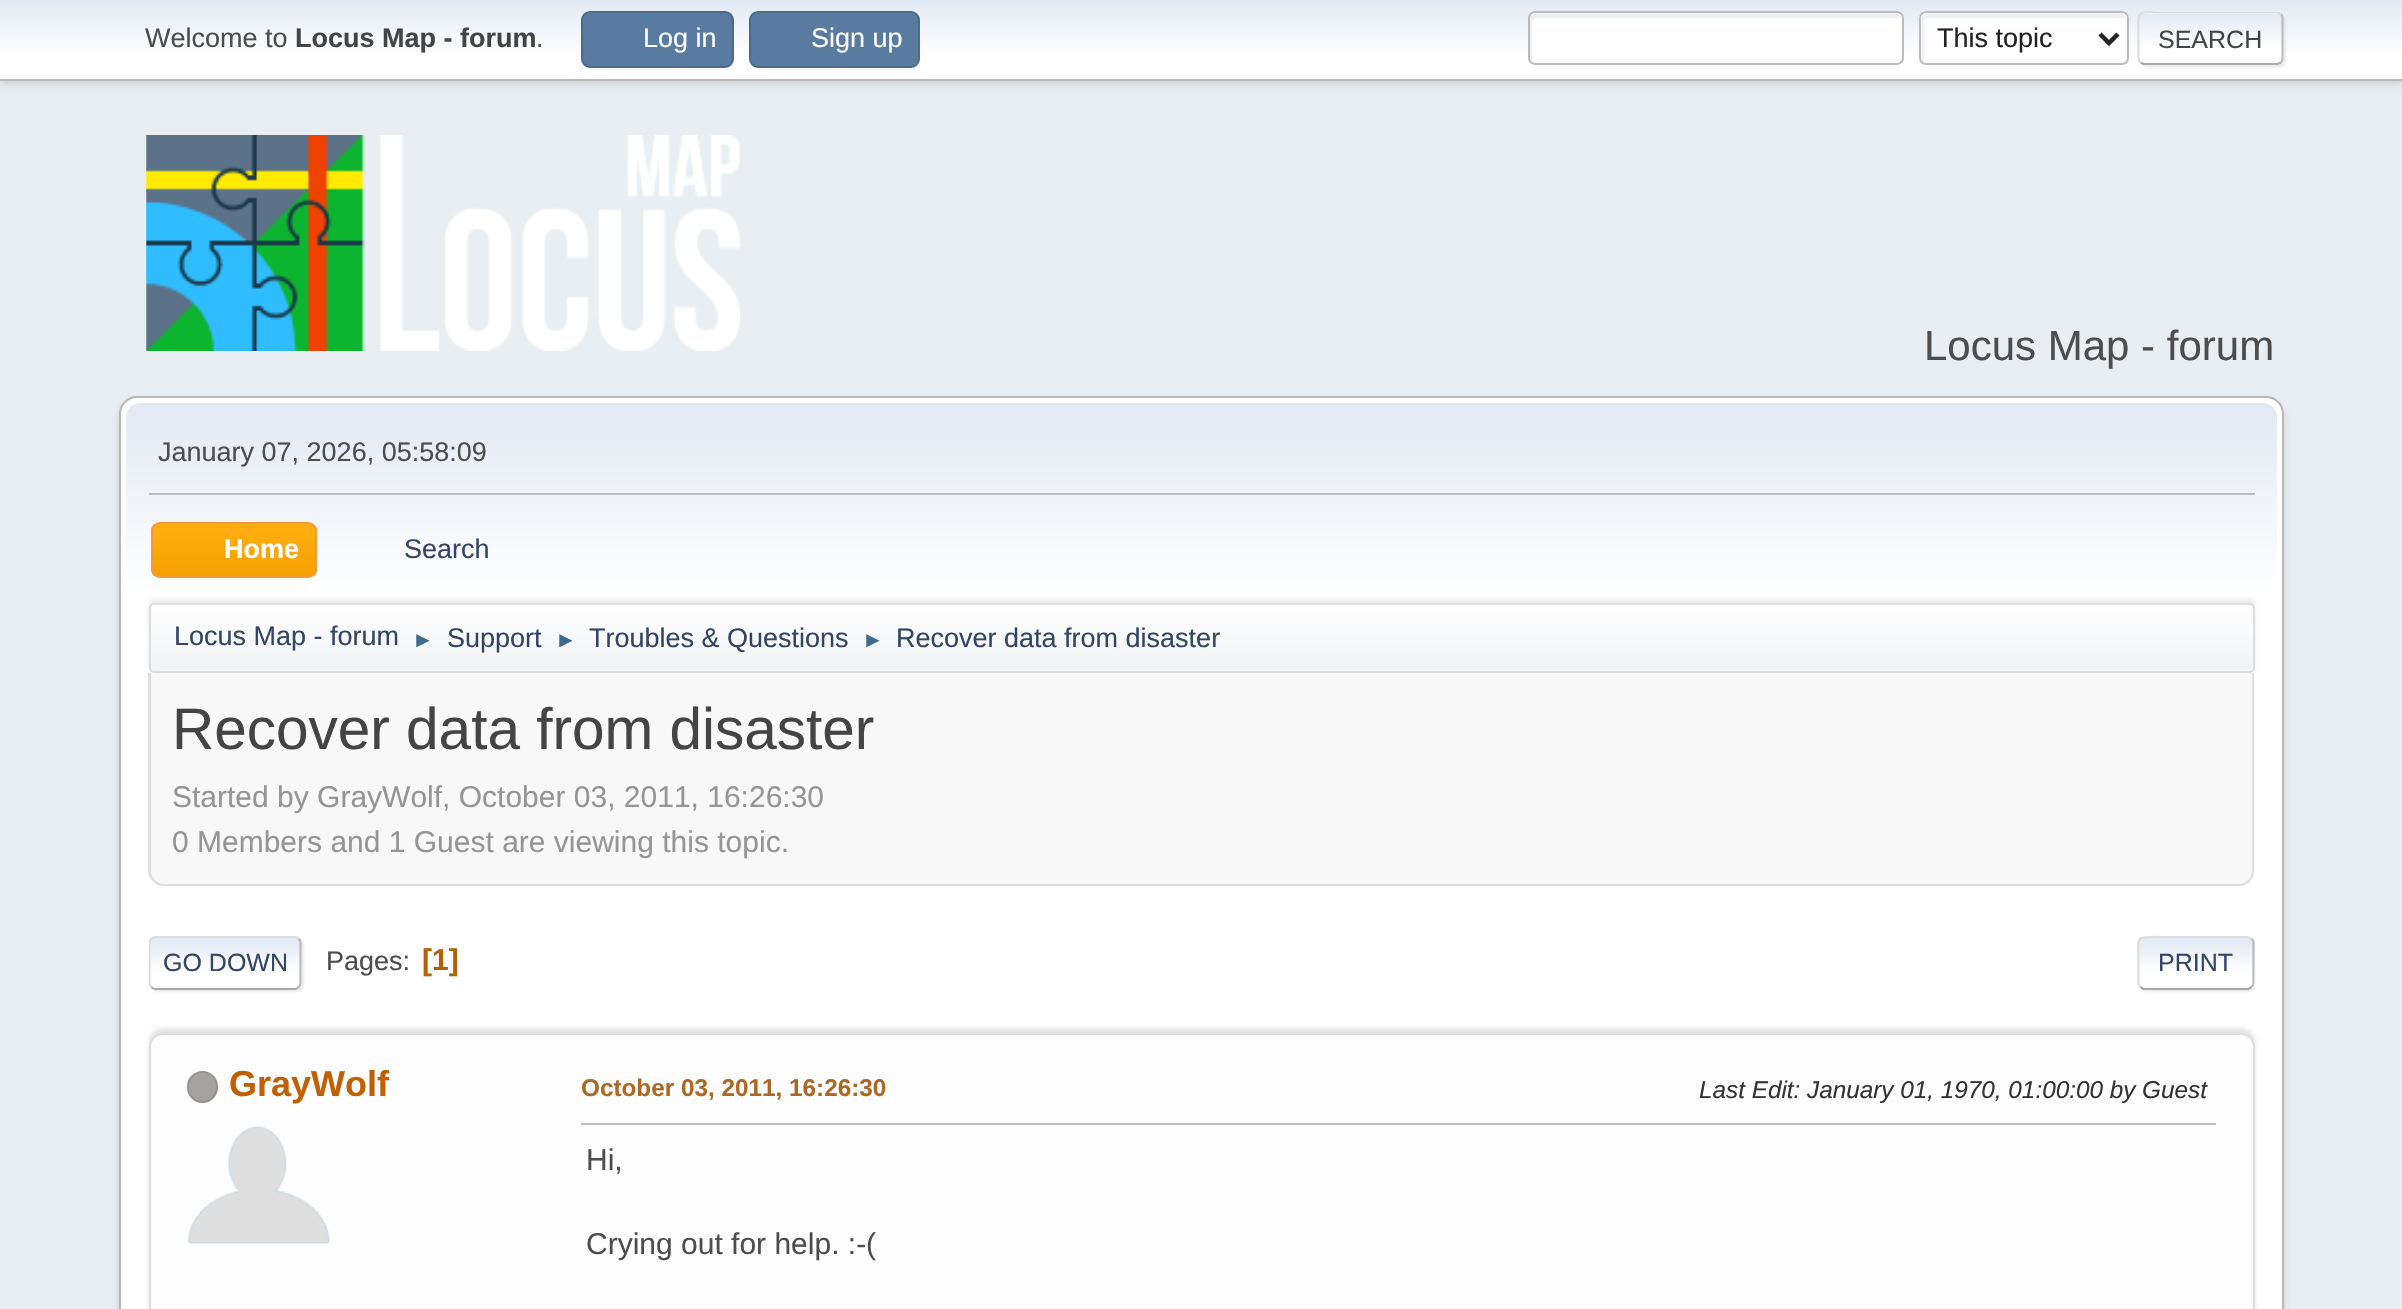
void draw(SkCanvas* canvas) {
    SkPaint paint;
    paint.setAntiAlias(true);
    canvas->clear(0xFFE9EEF2);
    paint.setColor(0x29000000);
    paint.setMaskFilter(SkMaskFilter::MakeBlur(kNormal_SkBlurStyle, 4.5f));
    canvas->drawRect(SkRect::MakeXYWH(0, 2, 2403, 81), paint);
    paint.setMaskFilter(nullptr);
    {
        const SkColor colors[] = {0xFFE2E9F3, 0xFFFFFFFF};
        const float stops[] = {0, 0.7f};
        const SkPoint ends[] = {{1202, 0}, {1202, 79}};
        paint.setShader(SkGradientShader::MakeLinear(ends, colors, stops, 2, SkTileMode::kClamp));
        paint.setAlpha(255);
    }
    canvas->drawRect(SkRect::MakeXYWH(0, 0, 2402, 79), paint);
    paint.setShader(nullptr);
    paint.setColor(0xFFBBBBBB);
    canvas->drawRect(SkRect::MakeXYWH(0, 79, 2402, 2), paint);
    SkFont font1(fontMgr->matchFamilyStyle("Liberation Sans", SkFontStyle::Normal()), 27);
    font1.setSubpixel(true);
    paint.setColor(0xFF4D4D4D);
    canvas->drawString("Welcome to", 145, 47, font1, paint);
    SkFont font2(fontMgr->matchFamilyStyle("Liberation Sans", SkFontStyle::Bold()), 27);
    font2.setSubpixel(true);
    paint.setColor(0xFF444444);
    canvas->drawString("Locus Map - forum", 295, 47, font2, paint);
    paint.setColor(0xFF4D4D4D);
    canvas->drawString(".", 536, 47, font1, paint);
    paint.setColor(0xFF597B9F);
    canvas->drawRoundRect(SkRect::MakeXYWH(582, 12, 151, 55), 8, 8, paint);
    paint.setStyle(SkPaint::kStroke_Style);
    paint.setStrokeWidth(2);
    paint.setColor(0xFF4A6B8C);
    canvas->drawRoundRect(SkRect::MakeXYWH(582, 12, 151, 55), 8, 8, paint);
    paint.setStyle(SkPaint::kFill_Style);
    paint.setColor(0xFFFFFFFF);
    canvas->drawString("Log in", 643, 47, font1, paint);
    paint.setColor(0xFF597B9F);
    canvas->drawRoundRect(SkRect::MakeXYWH(750, 12, 169, 55), 8, 8, paint);
    paint.setStyle(SkPaint::kStroke_Style);
    paint.setColor(0xFF4A6B8C);
    canvas->drawRoundRect(SkRect::MakeXYWH(750, 12, 169, 55), 8, 8, paint);
    paint.setStyle(SkPaint::kFill_Style);
    paint.setColor(0xFFFFFFFF);
    canvas->drawString("Sign up", 811, 47, font1, paint);
    canvas->drawRoundRect(SkRect::MakeXYWH(1528, 11, 376, 54), 7, 7, paint);
    paint.setColor(0xFFECF1F8);
    canvas->drawPath(SkPathBuilder().moveTo(1537, 18).lineTo(1899, 18).lineTo(1901, 18).cubicTo(1901, 16, 1899, 14, 1896, 14).lineTo(1535, 14).cubicTo(1532, 14, 1530, 16, 1530, 19).lineTo(1530, 58).cubicTo(1530, 60, 1531, 61, 1532, 62).lineTo(1532, 22).cubicTo(1532, 20, 1534, 18, 1537, 18).close().detach(), paint);
    paint.setStyle(SkPaint::kStroke_Style);
    paint.setColor(0xFFBBBBBB);
    canvas->drawRoundRect(SkRect::MakeXYWH(1529, 12, 374, 52), 6, 6, paint);
    paint.setStyle(SkPaint::kFill_Style);
    paint.setColor(0xFFFFFFFF);
    canvas->drawRoundRect(SkRect::MakeXYWH(1919, 11, 210, 54), 7, 7, paint);
    paint.setColor(0xFFECF1F8);
    canvas->drawPath(SkPathBuilder().moveTo(1928, 18).lineTo(2124, 18).lineTo(2126, 19).cubicTo(2126, 16, 2124, 14, 2121, 14).lineTo(1927, 14).cubicTo(1924, 14, 1922, 16, 1922, 19).lineTo(1922, 58).cubicTo(1922, 60, 1923, 61, 1924, 62).lineTo(1924, 22).cubicTo(1924, 20, 1926, 18, 1928, 18).close().detach(), paint);
    paint.setStyle(SkPaint::kStroke_Style);
    paint.setColor(0xFFBBBBBB);
    canvas->drawRoundRect(SkRect::MakeXYWH(1920, 12, 208, 52), 6, 6, paint);
    paint.setStrokeWidth(4.5f);
    paint.setColor(0xFF222222);
    canvas->drawPath(SkPathBuilder().moveTo(2100, 34).lineTo(2109, 43).lineTo(2118, 34).detach(), paint);
    paint.setStyle(SkPaint::kFill_Style);
    canvas->drawString("This topic", 1937, 47, font1, paint);
    paint.setColor(0x91DDDDDD);
    paint.setMaskFilter(SkMaskFilter::MakeBlur(kNormal_SkBlurStyle, 1));
    canvas->drawRoundRect(SkRect::MakeXYWH(2140, 14, 146, 54), 7, 7, paint);
    paint.setMaskFilter(nullptr);
    canvas->save();
    canvas->clipPath(SkPathBuilder().moveTo(2145, 11).lineTo(2277, 11).cubicTo(2281, 11, 2284, 14, 2284, 18).lineTo(2284, 58).cubicTo(2284, 62, 2281, 65, 2277, 65).lineTo(2145, 65).cubicTo(2141, 65, 2138, 62, 2138, 58).lineTo(2138, 18).cubicTo(2138, 14, 2141, 11, 2145, 11).close().detach(), true);
    {
        const SkColor colors[] = {0xFFE2E9F3, 0xFFFFFFFF};
        const float stops[] = {0, 0.7f};
        const SkPoint ends[] = {{2211, -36}, {2211, 14}};
        paint.setShader(SkGradientShader::MakeLinear(ends, colors, stops, 2, SkTileMode::kClamp));
        paint.setAlpha(255);
    }
    canvas->drawRect(SkRect::MakeXYWH(2138, 11, 146, 3), paint);
    {
        const SkColor colors[] = {0xFFE2E9F3, 0xFFFFFFFF};
        const float stops[] = {0, 0.7f};
        const SkPoint ends[] = {{2211, 13}, {2211, 63}};
        paint.setShader(SkGradientShader::MakeLinear(ends, colors, stops, 2, SkTileMode::kClamp));
        paint.setAlpha(255);
    }
    canvas->drawRect(SkRect::MakeXYWH(2138, 14, 146, 49), paint);
    {
        const SkColor colors[] = {0xFFE2E9F3, 0xFFFFFFFF};
        const float stops[] = {0, 0.7f};
        const SkPoint ends[] = {{2211, 63}, {2211, 113}};
        paint.setShader(SkGradientShader::MakeLinear(ends, colors, stops, 2, SkTileMode::kClamp));
        paint.setAlpha(255);
    }
    canvas->drawRect(SkRect::MakeXYWH(2138, 63, 146, 2), paint);
    canvas->restore();
    paint.setStyle(SkPaint::kStroke_Style);
    paint.setStrokeWidth(2.2f);
    paint.setShader(nullptr);
    paint.setColor(0xFFBBBBBB);
    canvas->drawPath(SkPathBuilder().moveTo(2281, 14).cubicTo(2282, 15, 2282.5f, 16.5f, 2282.5f, 18).lineTo(2282.5f, 58.5f).cubicTo(2282.5f, 60, 2282, 61.5f, 2281, 62.5f).detach(), paint);
    paint.setColor(0xFFAAAAAA);
    canvas->drawPath(SkPathBuilder().moveTo(2281, 62.5f).lineTo(2277.5f, 64).lineTo(2143.5f, 64).lineTo(2140.5f, 62.5f).detach(), paint);
    paint.setColor(0xFFDDDDDD);
    canvas->drawPath(SkPathBuilder().moveTo(2140.5f, 62.5f).cubicTo(2137.5f, 60, 2138.5f, 55, 2138.5f, 52).lineTo(2138.5f, 38).cubicTo(2138.5f, 7.5f, 2134, 12.5f, 2166.5f, 12.5f).lineTo(2277, 12.5f).cubicTo(2278.5f, 12.5f, 2280, 13, 2281, 14).detach(), paint);
    SkFont font3(fontMgr->matchFamilyStyle("Liberation Sans", SkFontStyle::Normal()), 25);
    font3.setSubpixel(true);
    paint.setStyle(SkPaint::kFill_Style);
    paint.setColor(0xFF444444);
    canvas->drawString("SEARCH", 2158, 48, font3, paint);
    canvas->drawImageRect(SkImages::DeferredFromEncodedData(SkData::MakeFromFileName("img1.png")), SkRect::MakeXYWH(146, 135, 595, 216), SkSamplingOptions());
    SkFont font4(fontMgr->matchFamilyStyle("Liberation Sans", SkFontStyle::Normal()), 42);
    font4.setSubpixel(true);
    paint.setColor(0xFF4D4D4D);
    canvas->drawString("Locus Map - forum", 1924, 360, font4, paint);
    paint.setColor(0x24000000);
    paint.setMaskFilter(SkMaskFilter::MakeBlur(kNormal_SkBlurStyle, 3.5f));
    canvas->drawRoundRect(SkRect::MakeXYWH(119, 401, 2165, 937), 18, 18, paint);
    paint.setMaskFilter(nullptr);
    paint.setColor(0xFFFFFFFF);
    canvas->drawRoundRect(SkRect::MakeXYWH(120, 397, 2163, 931), 17, 17, paint);
    paint.setStyle(SkPaint::kStroke_Style);
    paint.setStrokeWidth(2);
    paint.setColor(0xFFB8B8B8);
    canvas->drawRoundRect(SkRect::MakeXYWH(120, 397, 2163, 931), 17, 17, paint);
    paint.setStyle(SkPaint::kFill_Style);
    {
        const SkColor colors[] = {0xFFE2E9F3, 0xFFFFFFFF};
        const float stops[] = {0, 0.7f};
        const SkPoint ends[] = {{1202, 403}, {1202, 677}};
        paint.setShader(SkGradientShader::MakeLinear(ends, colors, stops, 2, SkTileMode::kClamp));
        paint.setAlpha(255);
    }
    canvas->drawPath(SkPathBuilder().moveTo(140, 403).lineTo(2263, 403).cubicTo(2270.5f, 403, 2277, 409.5f, 2277, 417).lineTo(2277, 677).lineTo(126, 677).lineTo(126, 417).cubicTo(126, 409.5f, 132.5f, 403, 140, 403).close().detach(), paint);
    paint.setShader(nullptr);
    paint.setColor(0xFFBBBBBB);
    canvas->drawRect(SkRect::MakeXYWH(149, 493, 2106, 2), paint);
    paint.setColor(0xFF4D4D4D);
    canvas->drawString("January 07, 2026, 05:58:09", 158, 461, font1, paint);
    canvas->save();
    canvas->clipPath(SkPathBuilder().moveTo(160, 522).lineTo(308, 522).cubicTo(313, 522, 317, 526, 317, 531).lineTo(317, 569).cubicTo(317, 574, 313, 578, 308, 578).lineTo(160, 578).cubicTo(155, 578, 151, 574, 151, 569).lineTo(151, 531).cubicTo(151, 526, 155, 522, 160, 522).close().detach(), true);
    {
        const SkColor colors[] = {0xFFFFAE14, 0xFFF5A100};
        const float stops[] = {0, 1};
        const SkPoint ends[] = {{234, 524}, {234, 576}};
        paint.setShader(SkGradientShader::MakeLinear(ends, colors, stops, 2, SkTileMode::kClamp));
        paint.setAlpha(255);
    }
    canvas->drawRect(SkRect::MakeXYWH(151, 524, 166, 52), paint);
    canvas->restore();
    paint.setStyle(SkPaint::kStroke_Style);
    paint.setShader(nullptr);
    paint.setColor(0xFFF49A3A);
    canvas->drawRoundRect(SkRect::MakeXYWH(152, 523, 164, 54), 8, 8, paint);
    paint.setStyle(SkPaint::kFill_Style);
    paint.setColor(0xFFFFFFFF);
    canvas->drawString("Home", 224, 558, font2, paint);
    paint.setColor(0xFF334466);
    canvas->drawString("Search", 404, 558, font1, paint);
    paint.setColor(0x14000000);
    paint.setMaskFilter(SkMaskFilter::MakeBlur(kNormal_SkBlurStyle, 2));
    canvas->drawRoundRect(SkRect::MakeXYWH(149, 599, 2106, 69), 5, 5, paint);
    paint.setMaskFilter(nullptr);
    canvas->save();
    canvas->clipPath(SkPathBuilder().moveTo(154, 603).lineTo(2250, 603).cubicTo(2253, 603, 2255, 605, 2255, 608).lineTo(2255, 668).cubicTo(2255, 671, 2253, 673, 2250, 673).lineTo(154, 673).cubicTo(151, 673, 149, 671, 149, 668).lineTo(149, 608).cubicTo(149, 605, 151, 603, 154, 603).close().detach(), true);
    {
        const SkColor colors[] = {0xFFFFFFFF, 0xFFF1F3F5};
        const float stops[] = {0, 0.95f};
        const SkPoint ends[] = {{1202, 605}, {1202, 671}};
        paint.setShader(SkGradientShader::MakeLinear(ends, colors, stops, 2, SkTileMode::kClamp));
        paint.setAlpha(255);
    }
    canvas->drawRect(SkRect::MakeXYWH(149, 605, 2106, 66), paint);
    canvas->restore();
    paint.setStyle(SkPaint::kStroke_Style);
    paint.setShader(nullptr);
    paint.setColor(0xFFDDDDDD);
    canvas->drawRoundRect(SkRect::MakeXYWH(150, 604, 2104, 68), 4, 4, paint);
    paint.setStyle(SkPaint::kFill_Style);
    paint.setColor(0xFF334466);
    canvas->drawString("Locus Map - forum", 174, 645, font1, paint);
    SkFont font5(fontMgr->matchFamilyStyle("Liberation Sans", SkFontStyle::Normal()), 22);
    font5.setSubpixel(true);
    paint.setColor(0xFF3F6B8C);
    canvas->drawString("►", 412, 647, font5, paint);
    paint.setColor(0xFF334466);
    canvas->drawString("Support", 447, 647, font1, paint);
    paint.setColor(0xFF3F6B8C);
    canvas->drawString("►", 555, 647, font5, paint);
    paint.setColor(0xFF334466);
    canvas->drawString("Troubles & Questions", 589, 647, font1, paint);
    paint.setColor(0xFF3F6B8C);
    canvas->drawString("►", 862, 647, font5, paint);
    paint.setColor(0xFF334466);
    canvas->drawString("Recover data from disaster", 896, 647, font1, paint);
    paint.setColor(0xFFF8F8F8);
    canvas->drawPath(SkPathBuilder().moveTo(149, 673).lineTo(2255, 673).lineTo(2255, 871).cubicTo(2255, 880, 2248, 887, 2239, 887).lineTo(165, 887).cubicTo(156, 887, 149, 880, 149, 871).close().detach(), paint);
    paint.setColor(0xFFDDDDDD);
    canvas->drawPath(SkPathBuilder(SkPathFillType::kEvenOdd).moveTo(148, 673).lineTo(2254, 673).lineTo(2254, 871).cubicTo(2254, 879, 2247, 886, 2239, 886).lineTo(164, 886).cubicTo(156, 886, 148, 879, 148, 871).close().moveTo(151, 673).lineTo(2252, 673).lineTo(2252, 871).cubicTo(2252, 878, 2246, 884, 2239, 884).lineTo(164, 884).cubicTo(157, 884, 151, 878, 151, 871).close().detach(), paint);
    SkFont font6(fontMgr->matchFamilyStyle("Liberation Sans", SkFontStyle::Normal()), 58.5f);
    font6.setSubpixel(true);
    paint.setColor(0xFF444444);
    canvas->drawString("Recover data from disaster", 172, 749, font6, paint);
    SkFont font7(fontMgr->matchFamilyStyle("Liberation Sans", SkFontStyle::Normal()), 30);
    font7.setSubpixel(true);
    paint.setColor(0xFF959595);
    canvas->drawString("Started by GrayWolf, October 03, 2011, 16:26:30", 172, 807, font7, paint);
    canvas->drawString("0 Members and 1 Guest are viewing this topic.", 172, 852, font7, paint);
    paint.setColor(0x91DDDDDD);
    paint.setMaskFilter(SkMaskFilter::MakeBlur(kNormal_SkBlurStyle, 1));
    canvas->drawRoundRect(SkRect::MakeXYWH(151, 938, 153, 54), 7, 7, paint);
    paint.setMaskFilter(nullptr);
    paint.setColor(0xFFFFFFFF);
    canvas->drawRoundRect(SkRect::MakeXYWH(149, 936, 153, 54), 7, 7, paint);
    canvas->save();
    canvas->clipPath(SkPathBuilder().moveTo(156, 936).lineTo(295, 936).cubicTo(299, 936, 302, 939, 302, 943).lineTo(302, 983).cubicTo(302, 987, 299, 990, 295, 990).lineTo(156, 990).cubicTo(152, 990, 149, 987, 149, 983).lineTo(149, 943).cubicTo(149, 939, 152, 936, 156, 936).close().detach(), true);
    {
        const SkColor colors[] = {0xFFE2E9F3, 0xFFFFFFFF};
        const float stops[] = {0, 0.7f};
        const SkPoint ends[] = {{225, 938}, {225, 988}};
        paint.setShader(SkGradientShader::MakeLinear(ends, colors, stops, 2, SkTileMode::kClamp));
        paint.setAlpha(255);
    }
    canvas->drawRect(SkRect::MakeXYWH(149, 938, 153, 50), paint);
    {
        const SkColor colors[] = {0xFFE2E9F3, 0xFFFFFFFF};
        const float stops[] = {0, 0.7f};
        const SkPoint ends[] = {{225, 988}, {225, 1037}};
        paint.setShader(SkGradientShader::MakeLinear(ends, colors, stops, 2, SkTileMode::kClamp));
        paint.setAlpha(255);
    }
    canvas->drawRect(SkRect::MakeXYWH(149, 988, 153, 2), paint);
    canvas->restore();
    paint.setStyle(SkPaint::kStroke_Style);
    paint.setStrokeWidth(2.2f);
    paint.setShader(nullptr);
    paint.setColor(0xFFBBBBBB);
    canvas->drawPath(SkPathBuilder().moveTo(298.5f, 939).cubicTo(300, 940, 300.5f, 941.5f, 300.5f, 943).lineTo(300.5f, 983).cubicTo(300.5f, 984.5f, 300, 986, 298.5f, 987).detach(), paint);
    paint.setColor(0xFFAAAAAA);
    canvas->drawPath(SkPathBuilder().moveTo(298.5f, 987).cubicTo(297.5f, 988.5f, 296, 989, 295, 989).lineTo(155, 989).cubicTo(154, 989, 152.5f, 988.5f, 151.5f, 987).detach(), paint);
    canvas->save();
    canvas->clipRect(SkRect::MakeXYWH(149, 920, 2106, 86));
    paint.setColor(0xFFDDDDDD);
    canvas->drawPath(SkPathBuilder().moveTo(151.5f, 987).cubicTo(150, 986, 149.5f, 984.5f, 149.5f, 983).lineTo(149.5f, 943).cubicTo(149.5f, 941.5f, 150, 940, 151.5f, 939).cubicTo(152.5f, 937.5f, 154, 937, 155, 937).lineTo(295, 937).cubicTo(296, 937, 297.5f, 937.5f, 298.5f, 939).detach(), paint);
    canvas->restore();
    paint.setStyle(SkPaint::kFill_Style);
    paint.setColor(0xFF334466);
    canvas->drawString("GO DOWN", 163, 971, font3, paint);
    paint.setColor(0xFF4D4D4D);
    canvas->drawString("Pages:", 326, 970, font1, paint);
    SkFont font8(fontMgr->matchFamilyStyle("Liberation Sans", SkFontStyle::Bold()), 30);
    font8.setSubpixel(true);
    paint.setColor(0xFFB46100);
    canvas->drawString("[1]", 422, 970, font8, paint);
    canvas->save();
    canvas->clipRect(SkRect::MakeXYWH(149, 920, 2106, 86));
    paint.setColor(0x91DDDDDD);
    paint.setMaskFilter(SkMaskFilter::MakeBlur(kNormal_SkBlurStyle, 1));
    canvas->drawRoundRect(SkRect::MakeXYWH(2140, 938, 117, 54), 7, 7, paint);
    paint.setMaskFilter(nullptr);
    canvas->restore();
    paint.setColor(0xFFFFFFFF);
    canvas->drawRoundRect(SkRect::MakeXYWH(2138, 936, 117, 54), 7, 7, paint);
    canvas->save();
    canvas->clipPath(SkPathBuilder().moveTo(2145, 936).lineTo(2248, 936).cubicTo(2252, 936, 2255, 939, 2255, 943).lineTo(2255, 983).cubicTo(2255, 987, 2252, 990, 2248, 990).lineTo(2145, 990).cubicTo(2141, 990, 2138, 987, 2138, 983).lineTo(2138, 943).cubicTo(2138, 939, 2141, 936, 2145, 936).close().detach(), true);
    {
        const SkColor colors[] = {0xFFE2E9F3, 0xFFFFFFFF};
        const float stops[] = {0, 0.7f};
        const SkPoint ends[] = {{2196, 938}, {2196, 988}};
        paint.setShader(SkGradientShader::MakeLinear(ends, colors, stops, 2, SkTileMode::kClamp));
        paint.setAlpha(255);
    }
    canvas->drawRect(SkRect::MakeXYWH(2138, 938, 117, 50), paint);
    {
        const SkColor colors[] = {0xFFE2E9F3, 0xFFFFFFFF};
        const float stops[] = {0, 0.7f};
        const SkPoint ends[] = {{2196, 988}, {2196, 1037}};
        paint.setShader(SkGradientShader::MakeLinear(ends, colors, stops, 2, SkTileMode::kClamp));
        paint.setAlpha(255);
    }
    canvas->drawRect(SkRect::MakeXYWH(2138, 988, 117, 2), paint);
    canvas->restore();
    paint.setStyle(SkPaint::kStroke_Style);
    paint.setShader(nullptr);
    paint.setColor(0xFFBBBBBB);
    canvas->drawPath(SkPathBuilder().moveTo(2251.5f, 939).cubicTo(2253, 940, 2253.5f, 941.5f, 2253.5f, 943).lineTo(2253.5f, 983).cubicTo(2253.5f, 984.5f, 2253, 986, 2251.5f, 987).detach(), paint);
    paint.setColor(0xFFAAAAAA);
    canvas->drawPath(SkPathBuilder().moveTo(2251.5f, 987).lineTo(2248.5f, 989).lineTo(2143.5f, 989).lineTo(2140.5f, 987).detach(), paint);
    paint.setColor(0xFFDDDDDD);
    canvas->drawPath(SkPathBuilder().moveTo(2140.5f, 987).cubicTo(2137.5f, 984.5f, 2138.5f, 979.5f, 2138.5f, 976.5f).lineTo(2138.5f, 963).cubicTo(2138.5f, 934.5f, 2133.5f, 937, 2161.5f, 937).lineTo(2248, 937).lineTo(2251.5f, 939).detach(), paint);
    paint.setStyle(SkPaint::kFill_Style);
    paint.setColor(0xFF334466);
    canvas->drawString("PRINT", 2158, 971, font3, paint);
    paint.setColor(0x1A000000);
    paint.setMaskFilter(SkMaskFilter::MakeBlur(kNormal_SkBlurStyle, 2));
    canvas->drawRoundRect(SkRect::MakeXYWH(149, 1028, 2106, 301), 14, 14, paint);
    paint.setMaskFilter(nullptr);
    paint.setColor(0xFFFDFDFD);
    canvas->drawRoundRect(SkRect::MakeXYWH(150, 1034, 2104, 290), 13, 13, paint);
    paint.setStyle(SkPaint::kStroke_Style);
    paint.setStrokeWidth(2);
    paint.setColor(0xFFDDDDDD);
    canvas->drawRoundRect(SkRect::MakeXYWH(150, 1034, 2104, 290), 13, 13, paint);
    paint.setStyle(SkPaint::kFill_Style);
    paint.setColor(0xFFA7A2A2);
    canvas->drawRoundRect(SkRect::MakeXYWH(188, 1072, 29, 30), 14.5f, 14.5f, paint);
    paint.setStyle(SkPaint::kStroke_Style);
    paint.setColor(0xFF969292);
    canvas->drawRoundRect(SkRect::MakeXYWH(188, 1072, 29, 30), 14.5f, 14.5f, paint);
    SkFont font9(fontMgr->matchFamilyStyle("Liberation Sans", SkFontStyle::Bold()), 36);
    font9.setSubpixel(true);
    paint.setStyle(SkPaint::kFill_Style);
    paint.setColor(0xFFC06002);
    canvas->drawString("GrayWolf", 229, 1096, font9, paint);
    canvas->drawImageRect(SkImages::DeferredFromEncodedData(SkData::MakeFromFileName("img2.png")), SkRect::MakeXYWH(188, 1126, 142, 118), SkSamplingOptions());
    SkFont font10(fontMgr->matchFamilyStyle("Liberation Sans", SkFontStyle::Bold()), 24.3f);
    font10.setSubpixel(true);
    paint.setColor(0xFFAD6825);
    canvas->drawString("October 03, 2011, 16:26:30", 581, 1096, font10, paint);
    SkFont font11(fontMgr->matchFamilyStyle("Liberation Sans", SkFontStyle::Italic()), 24.3f);
    font11.setSubpixel(true);
    paint.setColor(0xFF333333);
    canvas->drawString("Last Edit: January 01, 1970, 01:00:00 by Guest", 1699, 1098, font11, paint);
    paint.setColor(0xFFBFBFBF);
    canvas->drawRect(SkRect::MakeXYWH(581, 1123, 1635, 2), paint);
    paint.setColor(0xFF4D4D4D);
    canvas->drawString("Hi,", 586, 1170, font7, paint);
    canvas->drawString("Crying out for help. :-(", 586, 1254, font7, paint);
}
